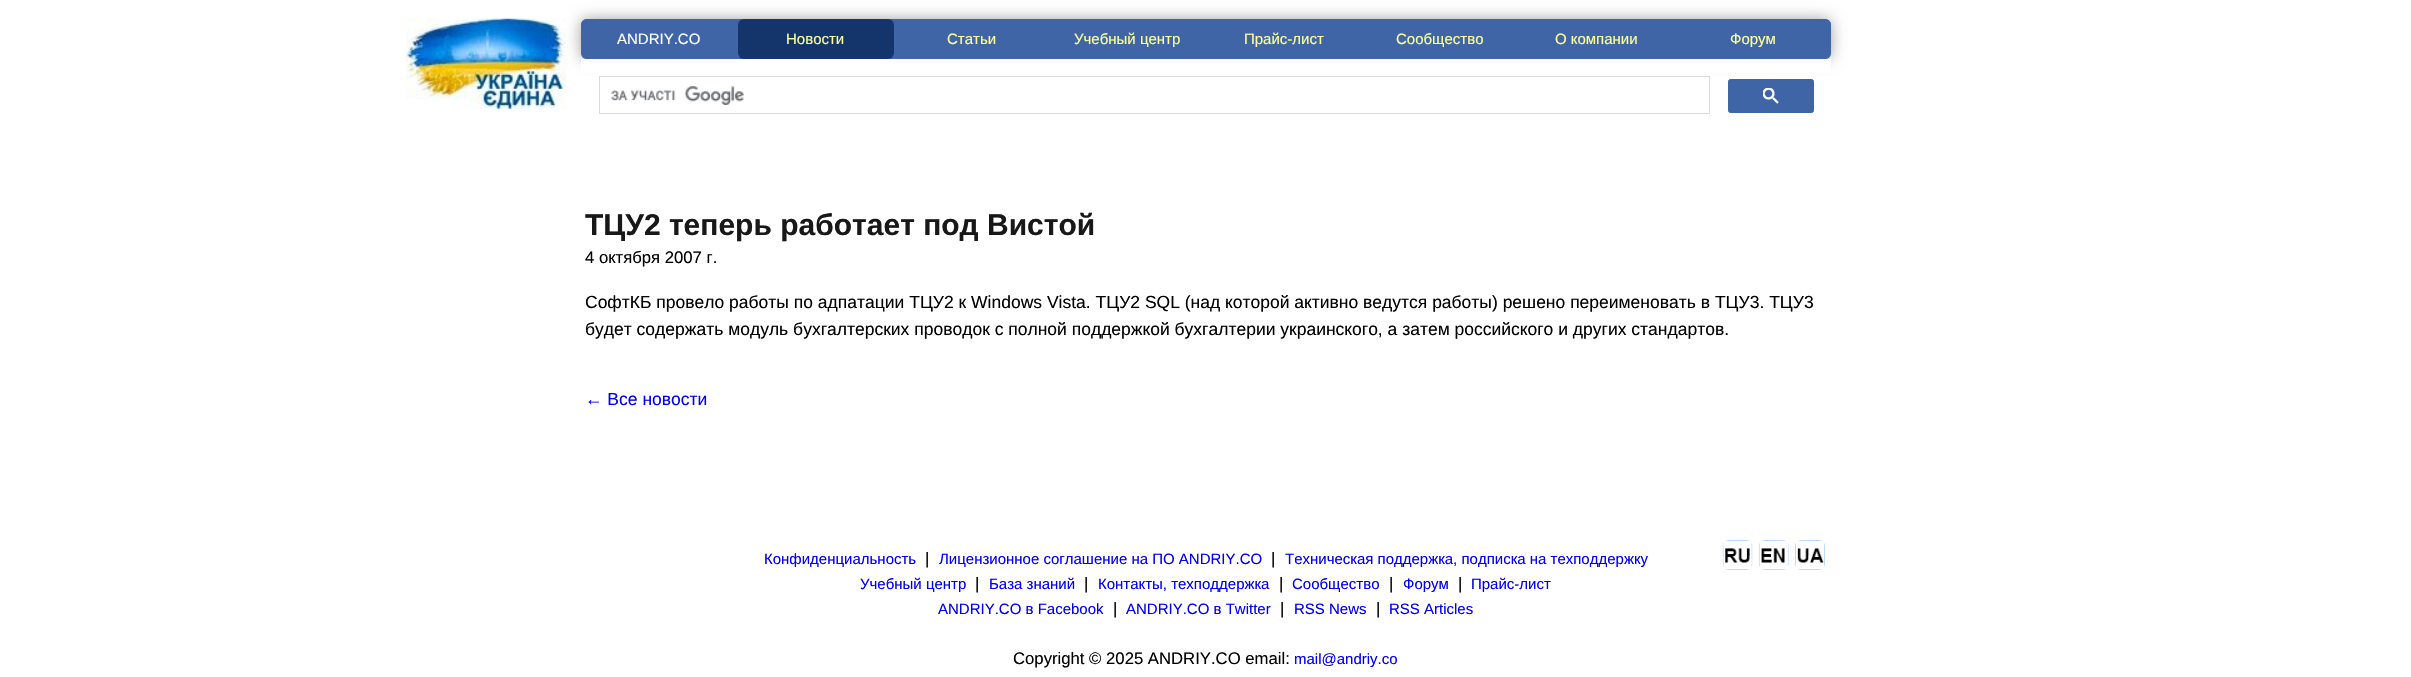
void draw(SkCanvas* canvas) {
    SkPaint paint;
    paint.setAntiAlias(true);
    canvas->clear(0xFFFFFFFF);
    paint.setColor(0xFFA0A0A0);
    paint.setMaskFilter(SkMaskFilter::MakeBlur(kNormal_SkBlurStyle, 7.5f));
    canvas->drawRoundRect(SkRect::MakeXYWH(581, 19, 1250, 40), 6, 6, paint);
    paint.setMaskFilter(nullptr);
    canvas->drawImageRect(SkImages::DeferredFromEncodedData(SkData::MakeFromFileName("img1.png")), SkRect::MakeXYWH(406, 18, 160, 91), SkSamplingOptions());
    paint.setColor(0xFF3F65A6);
    canvas->drawRoundRect(SkRect::MakeXYWH(581, 19, 1250, 40), 6, 6, paint);
    canvas->drawRoundRect(SkRect::MakeXYWH(581, 19, 157, 40), 6, 6, paint);
    SkFont font1(fontMgr->matchFamilyStyle("Liberation Sans", SkFontStyle::Normal()), 15);
    font1.setSubpixel(true);
    paint.setColor(0xFFFFFFFF);
    canvas->drawString("ANDRIY.CO", 617, 44, font1, paint);
    paint.setColor(0xFF14356C);
    canvas->drawRoundRect(SkRect::MakeXYWH(738, 19, 156, 40), 6, 6, paint);
    paint.setColor(0xFFFFFF99);
    canvas->drawString("Новости", 786, 44, font1, paint);
    canvas->drawString("Статьи", 947, 44, font1, paint);
    canvas->drawString("Учебный центр", 1074, 44, font1, paint);
    canvas->drawString("Прайс-лист", 1244, 44, font1, paint);
    canvas->drawString("Сообщество", 1396, 44, font1, paint);
    canvas->drawString("О компании", 1555, 44, font1, paint);
    paint.setColor(0xFF3F65A6);
    canvas->drawRoundRect(SkRect::MakeXYWH(1675, 19, 156, 40), 6, 6, paint);
    paint.setColor(0xFFFFFF99);
    canvas->drawString("Форум", 1730, 44, font1, paint);
    paint.setColor(0xFFFFFFFF);
    canvas->drawRect(SkRect::MakeXYWH(581, 59, 1250, 14), paint);
    paint.setStyle(SkPaint::kStroke_Style);
    paint.setStrokeWidth(1);
    paint.setColor(0xFFD9D9D9);
    canvas->drawRect(SkRect::MakeXYWH(599.5f, 76.5f, 1110, 37), paint);
    canvas->drawImageRect(SkImages::DeferredFromEncodedData(SkData::MakeFromFileName("img2.png")), SkRect::MakeXYWH(611, 86, 133, 19), SkSamplingOptions());
    paint.setStyle(SkPaint::kFill_Style);
    paint.setColor(0xFF3F65A6);
    canvas->drawRoundRect(SkRect::MakeXYWH(1728.5f, 79.5f, 85, 33), 2, 2, paint);
    paint.setStyle(SkPaint::kStroke_Style);
    canvas->drawRoundRect(SkRect::MakeXYWH(1728.5f, 79.5f, 85, 33), 2, 2, paint);
    canvas->drawImageRect(SkImages::DeferredFromEncodedData(SkData::MakeFromFileName("img3.png")), SkRect::MakeXYWH(1763, 88, 16, 16), SkSamplingOptions());
    SkFont font2(fontMgr->matchFamilyStyle("Liberation Sans", SkFontStyle::Bold()), 30);
    font2.setSubpixel(true);
    paint.setStyle(SkPaint::kFill_Style);
    paint.setColor(0xFF181818);
    canvas->drawString("ТЦУ2 теперь работает под Вистой", 585, 235, font2, paint);
    SkFont font3(fontMgr->matchFamilyStyle("Liberation Sans", SkFontStyle::Normal()), 16.7f);
    font3.setSubpixel(true);
    paint.setColor(0xFF000000);
    canvas->drawString("4 октября 2007 г.", 585, 263, font3, paint);
    SkFont font4(fontMgr->matchFamilyStyle("Liberation Sans", SkFontStyle::Normal()), 17.5f);
    font4.setSubpixel(true);
    canvas->drawString("СофтКБ провело работы по адпатации ТЦУ2 к Windows Vista. ТЦУ2 SQL (над которой активно ведутся работы) решено переименовать в ТЦУ3. ТЦУ3", 585, 308, font4, paint);
    canvas->drawString("будет содержать модуль бухгалтерских проводок с полной поддержкой бухгалтерии украинского, а затем российского и других стандартов.", 585, 335, font4, paint);
    paint.setColor(0xFF0000EE);
    canvas->drawString("← Все новости", 585, 405, font4, paint);
    canvas->drawString("Конфиденциальность", 764, 564, font1, paint);
    paint.setColor(0xFF000000);
    canvas->drawString("|", 925, 564, font3, paint);
    paint.setColor(0xFF0000EE);
    canvas->drawString("Лицензионное соглашение на ПО ANDRIY.CO", 939, 564, font1, paint);
    paint.setColor(0xFF000000);
    canvas->drawString("|", 1271, 564, font3, paint);
    paint.setColor(0xFF0000EE);
    canvas->drawString("Техническая поддержка, подписка на техподдержку", 1285, 564, font1, paint);
    canvas->drawString("Учебный центр", 860, 589, font1, paint);
    paint.setColor(0xFF000000);
    canvas->drawString("|", 975, 589, font3, paint);
    paint.setColor(0xFF0000EE);
    canvas->drawString("База знаний", 989, 589, font1, paint);
    paint.setColor(0xFF000000);
    canvas->drawString("|", 1084, 589, font3, paint);
    paint.setColor(0xFF0000EE);
    canvas->drawString("Контакты, техподдержка", 1098, 589, font1, paint);
    paint.setColor(0xFF000000);
    canvas->drawString("|", 1279, 589, font3, paint);
    paint.setColor(0xFF0000EE);
    canvas->drawString("Сообщество", 1292, 589, font1, paint);
    paint.setColor(0xFF000000);
    canvas->drawString("|", 1389, 589, font3, paint);
    paint.setColor(0xFF0000EE);
    canvas->drawString("Форум", 1403, 589, font1, paint);
    paint.setColor(0xFF000000);
    canvas->drawString("|", 1458, 589, font3, paint);
    paint.setColor(0xFF0000EE);
    canvas->drawString("Прайс-лист", 1471, 589, font1, paint);
    canvas->drawString("ANDRIY.CO в Facebook", 938, 614, font1, paint);
    paint.setColor(0xFF000000);
    canvas->drawString("|", 1113, 614, font3, paint);
    paint.setColor(0xFF0000EE);
    canvas->drawString("ANDRIY.CO в Twitter", 1126, 614, font1, paint);
    paint.setColor(0xFF000000);
    canvas->drawString("|", 1280, 614, font3, paint);
    paint.setColor(0xFF0000EE);
    canvas->drawString("RSS News", 1294, 614, font1, paint);
    paint.setColor(0xFF000000);
    canvas->drawString("|", 1376, 614, font3, paint);
    paint.setColor(0xFF0000EE);
    canvas->drawString("RSS Articles", 1389, 614, font1, paint);
    canvas->drawImageRect(SkImages::DeferredFromEncodedData(SkData::MakeFromFileName("img4.png")), SkRect::MakeXYWH(1722, 540, 31, 30), SkSamplingOptions());
    canvas->drawImageRect(SkImages::DeferredFromEncodedData(SkData::MakeFromFileName("img5.png")), SkRect::MakeXYWH(1758, 540, 31, 30), SkSamplingOptions());
    canvas->drawImageRect(SkImages::DeferredFromEncodedData(SkData::MakeFromFileName("img6.png")), SkRect::MakeXYWH(1795, 540, 30, 30), SkSamplingOptions());
    paint.setColor(0xFF000000);
    canvas->drawString("Copyright © 2025 ANDRIY.CO email:", 1013, 664, font3, paint);
    paint.setColor(0xFF0000EE);
    canvas->drawString("mail@andriy.co", 1294, 664, font1, paint);
}
